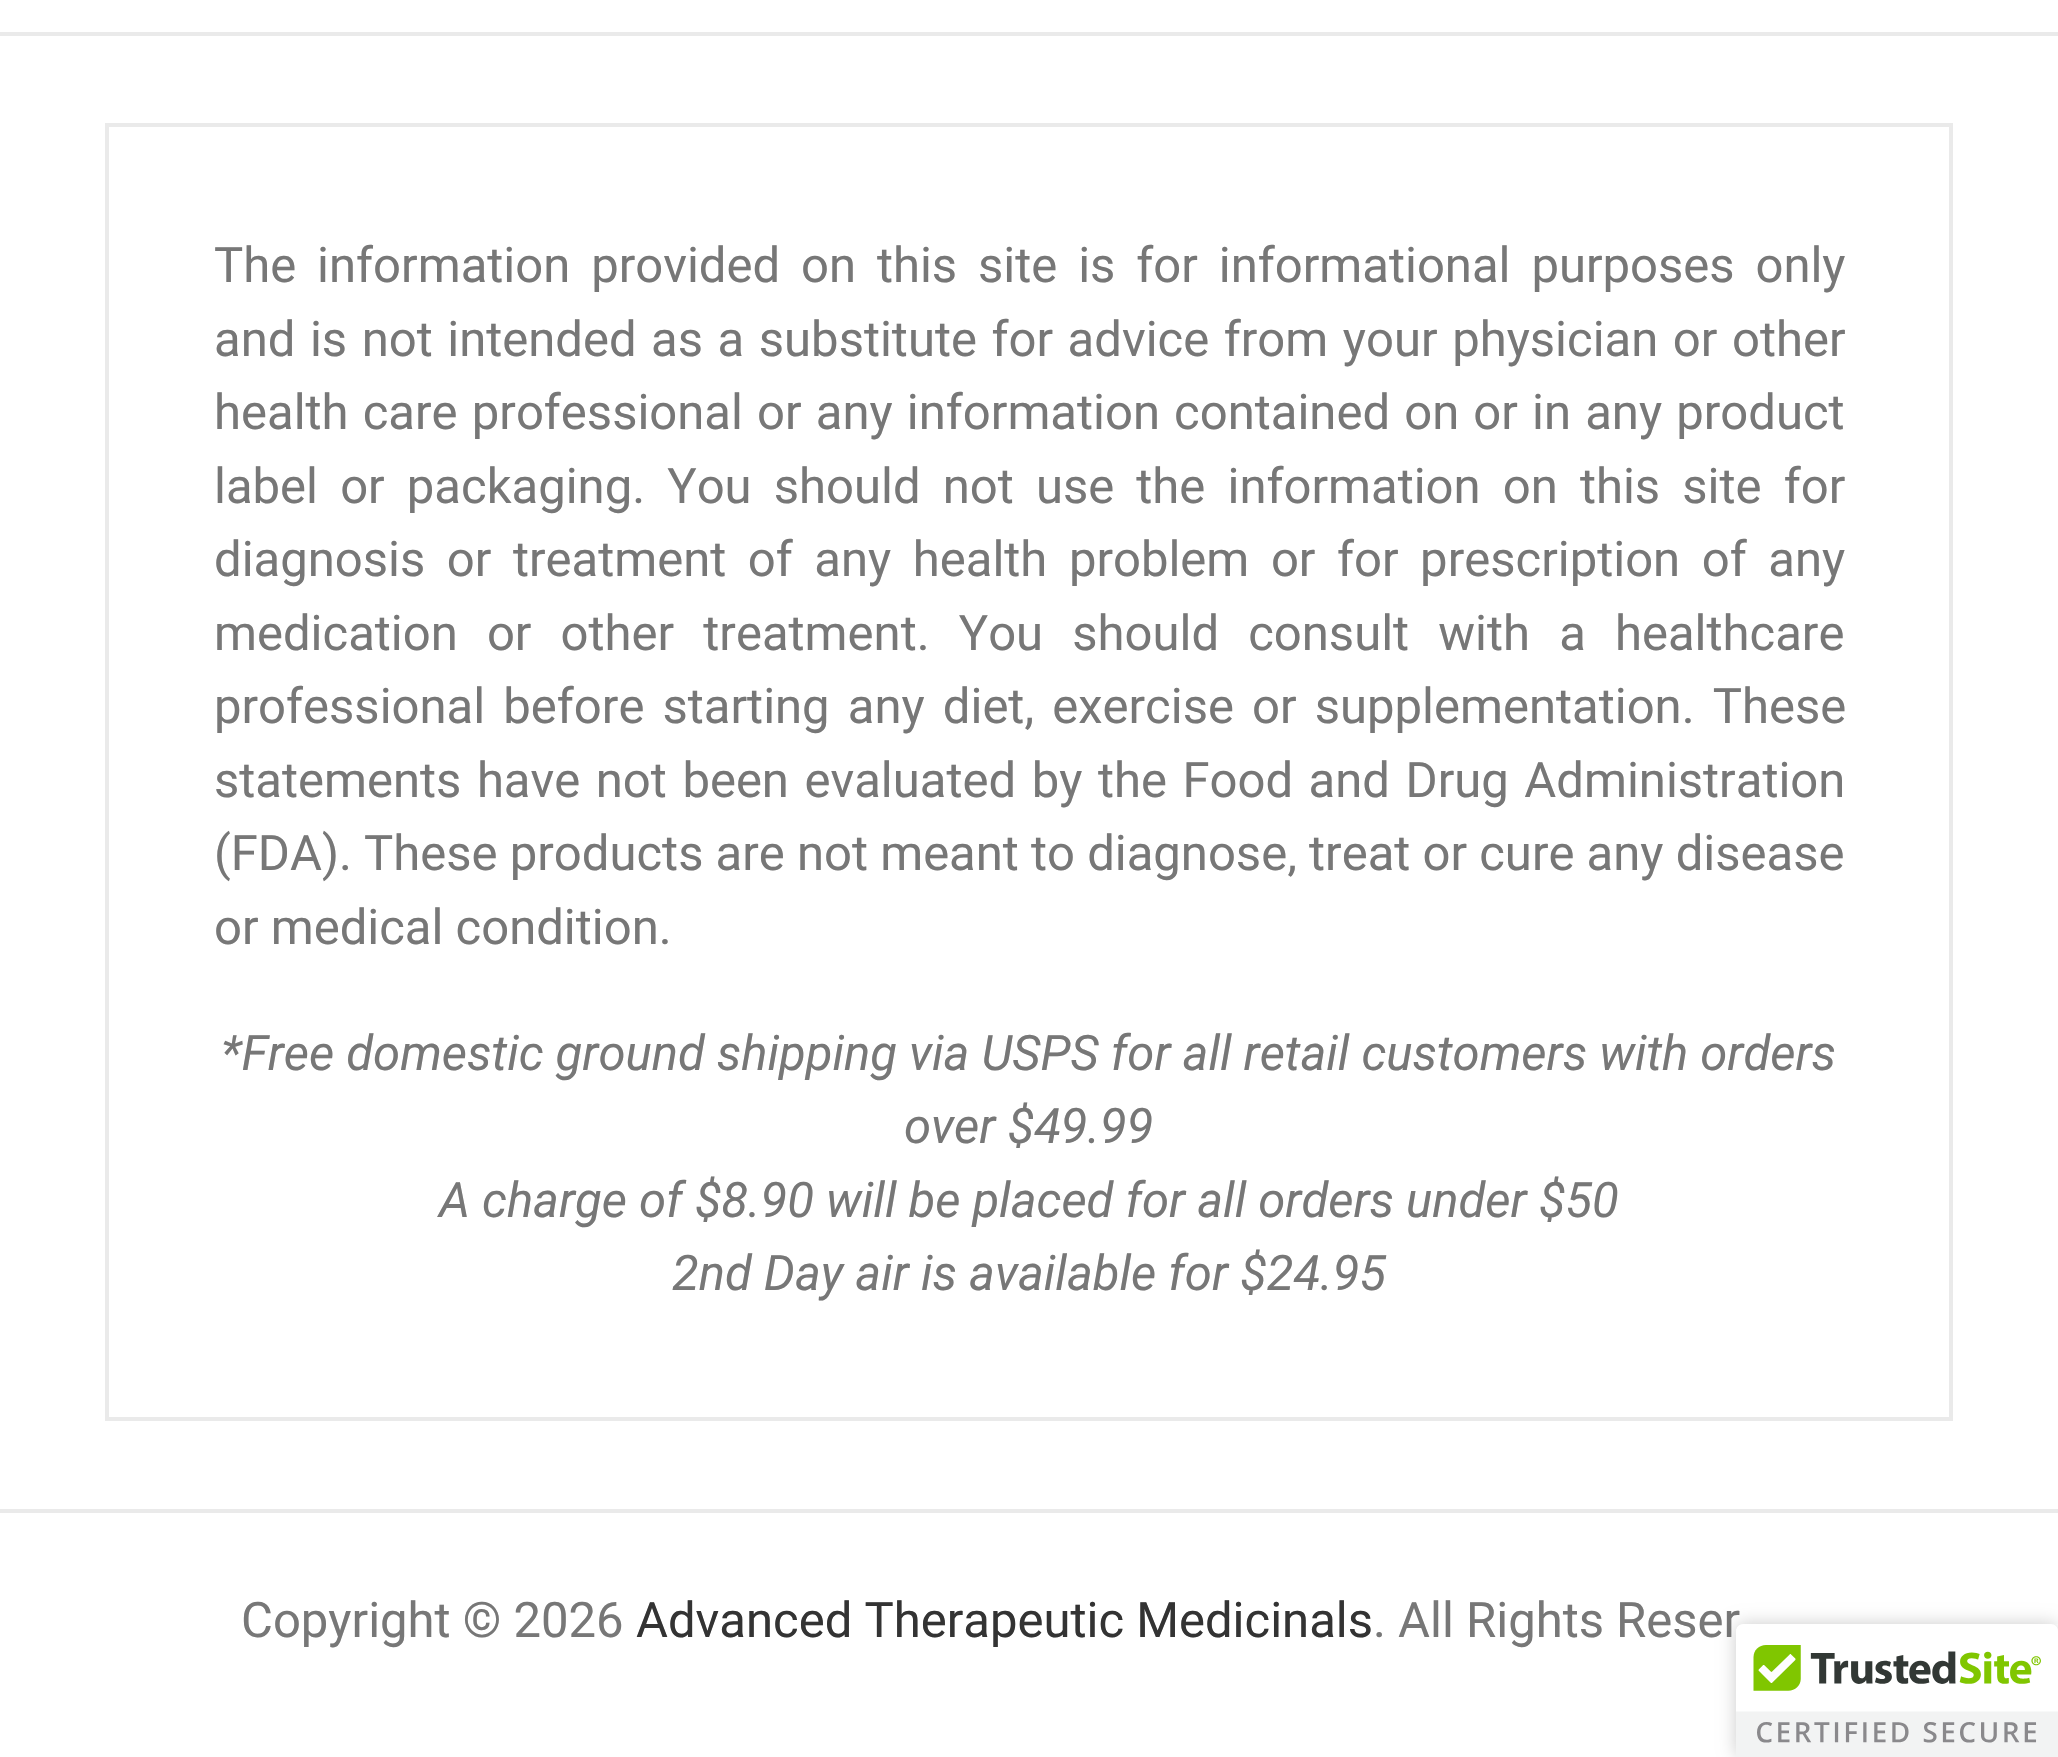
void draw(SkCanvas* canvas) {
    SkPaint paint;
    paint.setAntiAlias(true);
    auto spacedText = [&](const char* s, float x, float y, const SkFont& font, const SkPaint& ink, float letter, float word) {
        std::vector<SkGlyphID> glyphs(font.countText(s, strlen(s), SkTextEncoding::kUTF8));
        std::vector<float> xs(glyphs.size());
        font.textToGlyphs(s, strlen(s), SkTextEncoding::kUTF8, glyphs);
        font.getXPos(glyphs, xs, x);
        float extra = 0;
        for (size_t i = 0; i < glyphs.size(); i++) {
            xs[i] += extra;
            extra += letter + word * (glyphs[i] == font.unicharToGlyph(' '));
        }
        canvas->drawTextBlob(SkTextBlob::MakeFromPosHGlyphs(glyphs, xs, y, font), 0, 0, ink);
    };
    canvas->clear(0xFFFFFFFF);
    paint.setColor(0xFFEAEAEA);
    canvas->drawRect(SkRect::MakeXYWH(0, 32, 2058, 4), paint);
    paint.setStyle(SkPaint::kStroke_Style);
    paint.setStrokeWidth(4);
    canvas->drawRect(SkRect::MakeXYWH(107, 125, 1844, 1294), paint);
    SkFont font1(fontMgr->matchFamilyStyle("Roboto", SkFontStyle::Normal()), 49);
    font1.setSubpixel(true);
    paint.setStyle(SkPaint::kFill_Style);
    paint.setColor(0xFF777777);
    spacedText("The information provided on this site is for informational purposes only", 214, 282, font1, paint, 0, 8.75f);
    spacedText("and is not intended as a substitute for advice from your physician or other", 214, 356, font1, paint, 0, 2.4f);
    spacedText("health care professional or any information contained on or in any product", 214, 429, font1, paint, 0, 2);
    spacedText("label or packaging. You should not use the information on this site for", 214, 503, font1, paint, 0, 10);
    spacedText("diagnosis or treatment of any health problem or for prescription of any", 214, 576, font1, paint, 0, 9.4f);
    spacedText("medication or other treatment. You should consult with a healthcare", 214, 650, font1, paint, 0, 17);
    spacedText("professional before starting any diet, exercise or supplementation. These", 214, 723, font1, paint, 0, 6);
    spacedText("statements have not been evaluated by the Food and Drug Administration", 214, 797, font1, paint, 0, 3.4f);
    canvas->drawString("(FDA). These products are not meant to diagnose‚ treat or cure any disease", 214, 870, font1, paint);
    canvas->drawString("or medical condition.", 214, 944, font1, paint);
    SkFont font2(fontMgr->matchFamilyStyle("Roboto", SkFontStyle::Italic()), 49);
    font2.setSubpixel(true);
    canvas->drawString("*Free domestic ground shipping via USPS for all retail customers with orders", 221, 1070, font2, paint);
    canvas->drawString("over $49.99", 904, 1143, font2, paint);
    canvas->drawString("A charge of $8.90 will be placed for all orders under $50", 439, 1217, font2, paint);
    canvas->drawString("2nd Day air is available for $24.95", 672, 1290, font2, paint);
    paint.setColor(0xFFEAEAEA);
    canvas->drawRect(SkRect::MakeXYWH(0, 1509, 2058, 4), paint);
    paint.setColor(0xFF777777);
    canvas->drawString("Copyright © 2026", 241, 1637, font1, paint);
    paint.setColor(0xFF333333);
    canvas->drawString("Advanced Therapeutic Medicinals", 636, 1637, font1, paint);
    paint.setColor(0xFF777777);
    canvas->drawString(". All Rights Reser", 1373, 1637, font1, paint);
    paint.setColor(0x33000000);
    paint.setMaskFilter(SkMaskFilter::MakeBlur(kNormal_SkBlurStyle, 9));
    canvas->drawRoundRect(SkRect::MakeXYWH(1736, 1624, 322, 133), 7, 7, paint);
    paint.setMaskFilter(nullptr);
    paint.setColor(0xFFFFFFFF);
    canvas->drawPath(SkPathBuilder().moveTo(1743, 1624).lineTo(2058, 1624).lineTo(2058, 1757).lineTo(1736, 1757).lineTo(1736, 1631).cubicTo(1736, 1627, 1739, 1624, 1743, 1624).close().detach(), paint);
    canvas->drawImageRect(SkImages::DeferredFromEncodedData(SkData::MakeFromFileName("img1.png")), SkRect::MakeXYWH(1736, 1624, 322, 133), SkSamplingOptions());
}
